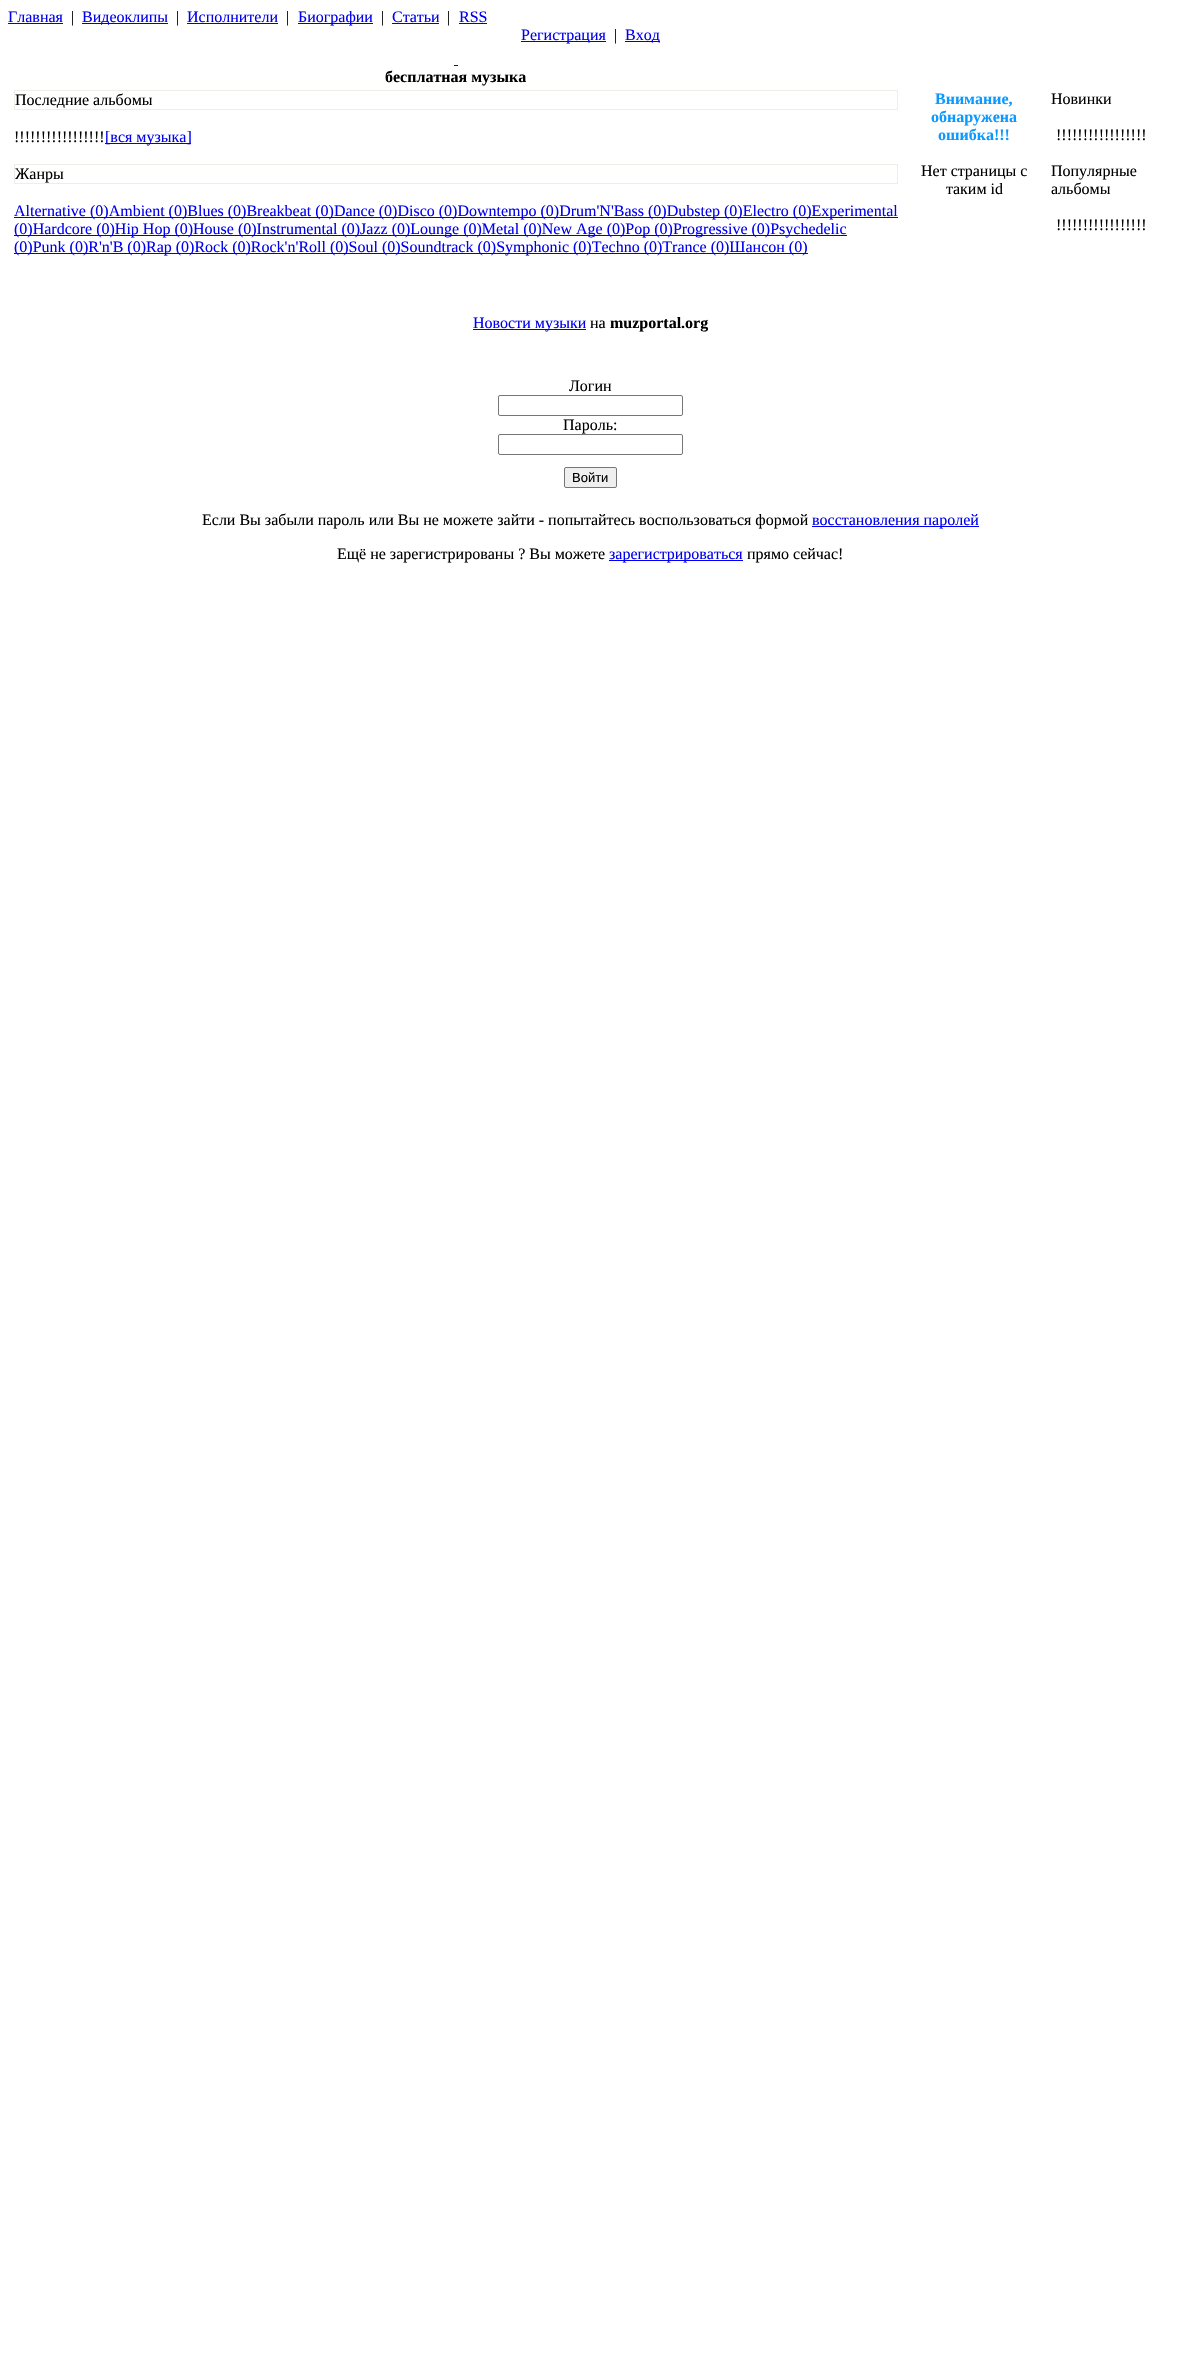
void draw(SkCanvas* canvas) {
    SkPaint paint;
    paint.setAntiAlias(true);
    canvas->clear(0xFFFFFFFF);
    SkFont font1(fontMgr->matchFamilyStyle("Liberation Serif", SkFontStyle::Normal()), 16);
    font1.setSubpixel(true);
    paint.setColor(0xFF0000EE);
    canvas->drawString("Главная", 8, 22, font1, paint);
    canvas->drawRect(SkRect::MakeXYWH(8, 23, 55, 1), paint);
    paint.setColor(0xFF000000);
    canvas->drawString("|", 71, 22, font1, paint);
    paint.setColor(0xFF0000EE);
    canvas->drawRect(SkRect::MakeXYWH(82, 23, 86, 1), paint);
    canvas->drawString("Видеоклипы", 82, 22, font1, paint);
    paint.setColor(0xFF000000);
    canvas->drawString("|", 176, 22, font1, paint);
    paint.setColor(0xFF0000EE);
    canvas->drawString("Исполнители", 187, 22, font1, paint);
    canvas->drawRect(SkRect::MakeXYWH(187, 23, 91, 1), paint);
    paint.setColor(0xFF000000);
    canvas->drawString("|", 286, 22, font1, paint);
    paint.setColor(0xFF0000EE);
    canvas->drawRect(SkRect::MakeXYWH(298, 23, 75, 1), paint);
    canvas->drawString("Биографии", 298, 22, font1, paint);
    paint.setColor(0xFF000000);
    canvas->drawString("|", 381, 22, font1, paint);
    paint.setColor(0xFF0000EE);
    canvas->drawString("Статьи", 392, 22, font1, paint);
    canvas->drawRect(SkRect::MakeXYWH(392, 23, 47, 1), paint);
    paint.setColor(0xFF000000);
    canvas->drawString("|", 447, 22, font1, paint);
    paint.setColor(0xFF0000EE);
    canvas->drawString("RSS", 459, 22, font1, paint);
    canvas->drawRect(SkRect::MakeXYWH(459, 23, 28, 1), paint);
    canvas->drawRect(SkRect::MakeXYWH(521, 41, 85, 1), paint);
    canvas->drawString("Регистрация", 521, 40, font1, paint);
    paint.setColor(0xFF000000);
    canvas->drawString("|", 614, 40, font1, paint);
    paint.setColor(0xFF0000EE);
    canvas->drawRect(SkRect::MakeXYWH(625, 41, 35, 1), paint);
    canvas->drawString("Вход", 625, 40, font1, paint);
    canvas->drawRect(SkRect::MakeXYWH(454, 65, 4, 1), paint);
    SkFont font2(fontMgr->matchFamilyStyle("Liberation Serif", SkFontStyle::Bold()), 16);
    font2.setSubpixel(true);
    paint.setColor(0xFF000000);
    canvas->drawString("бесплатная музыка", 385, 82, font2, paint);
    paint.setStyle(SkPaint::kStroke_Style);
    paint.setStrokeWidth(1);
    paint.setColor(0xFFEEEDE7);
    canvas->drawRect(SkRect::MakeXYWH(14.5f, 90.5f, 883, 19), paint);
    paint.setStyle(SkPaint::kFill_Style);
    paint.setColor(0xFF000000);
    canvas->drawString("Последние альбомы", 15, 105, font1, paint);
    canvas->drawString("!!!!!!!!!!!!!!!!!", 14, 142, font1, paint);
    paint.setColor(0xFF0000EE);
    canvas->drawRect(SkRect::MakeXYWH(105, 143, 86, 1), paint);
    canvas->drawString("[вся музыка]", 105, 142, font1, paint);
    paint.setStyle(SkPaint::kStroke_Style);
    paint.setColor(0xFFEEEDE7);
    canvas->drawRect(SkRect::MakeXYWH(14.5f, 164.5f, 883, 19), paint);
    paint.setStyle(SkPaint::kFill_Style);
    paint.setColor(0xFF000000);
    canvas->drawString("Жанры", 15, 179, font1, paint);
    paint.setColor(0xFF0000EE);
    canvas->drawRect(SkRect::MakeXYWH(14, 217, 884, 1), paint);
    canvas->drawString("Alternative (0)Ambient (0)Blues (0)Breakbeat (0)Dance (0)Disco (0)Downtempo (0)Drum'N'Bass (0)Dubstep (0)Electro (0)Experimental", 14, 216, font1, paint);
    canvas->drawRect(SkRect::MakeXYWH(14, 235, 833, 1), paint);
    canvas->drawString("(0)Hardcore (0)Hip Hop (0)House (0)Instrumental (0)Jazz (0)Lounge (0)Metal (0)New Age (0)Pop (0)Progressive (0)Psychedelic", 14, 234, font1, paint);
    canvas->drawRect(SkRect::MakeXYWH(14, 253, 794, 1), paint);
    canvas->drawString("(0)Punk (0)R'n'B (0)Rap (0)Rock (0)Rock'n'Roll (0)Soul (0)Soundtrack (0)Symphonic (0)Techno (0)Trance (0)Шансон (0)", 14, 252, font1, paint);
    paint.setColor(0xFF0A9AFF);
    canvas->drawString("Внимание,", 935, 104, font2, paint);
    canvas->drawString("обнаружена", 931, 122, font2, paint);
    canvas->drawString("ошибка!!!", 938, 140, font2, paint);
    paint.setColor(0xFF000000);
    canvas->drawString("Нет страницы с", 921, 176, font1, paint);
    canvas->drawString("таким id", 946, 194, font1, paint);
    canvas->drawString("Новинки", 1051, 104, font1, paint);
    canvas->drawString("!!!!!!!!!!!!!!!!!", 1056, 140, font1, paint);
    canvas->drawString("Популярные", 1051, 176, font1, paint);
    canvas->drawString("альбомы", 1051, 194, font1, paint);
    canvas->drawString("!!!!!!!!!!!!!!!!!", 1056, 230, font1, paint);
    paint.setColor(0xFF0000EE);
    canvas->drawRect(SkRect::MakeXYWH(473, 329, 113, 1), paint);
    canvas->drawString("Новости музыки", 473, 328, font1, paint);
    paint.setColor(0xFF000000);
    canvas->drawString("на", 590, 328, font1, paint);
    canvas->drawString("muzportal.org", 610, 328, font2, paint);
    canvas->drawString("Логин", 569, 391, font1, paint);
    paint.setStyle(SkPaint::kStroke_Style);
    paint.setColor(0xFF767676);
    canvas->drawRoundRect(SkRect::MakeXYWH(498.5f, 395.5f, 184, 20), 1.5f, 1.5f, paint);
    paint.setStyle(SkPaint::kFill_Style);
    paint.setColor(0xFF000000);
    canvas->drawString("Пароль:", 563, 430, font1, paint);
    paint.setStyle(SkPaint::kStroke_Style);
    paint.setColor(0xFF767676);
    canvas->drawRoundRect(SkRect::MakeXYWH(498.5f, 434.5f, 184, 20), 1.5f, 1.5f, paint);
    paint.setStyle(SkPaint::kFill_Style);
    paint.setColor(0xFFEFEFEF);
    canvas->drawRoundRect(SkRect::MakeXYWH(564.5f, 467.5f, 52, 20), 1.5f, 1.5f, paint);
    paint.setStyle(SkPaint::kStroke_Style);
    paint.setColor(0xFF767676);
    canvas->drawRoundRect(SkRect::MakeXYWH(564.5f, 467.5f, 52, 20), 1.5f, 1.5f, paint);
    SkFont font3(fontMgr->matchFamilyStyle("Liberation Sans", SkFontStyle::Normal()), 13);
    font3.setSubpixel(true);
    paint.setStyle(SkPaint::kFill_Style);
    paint.setColor(0xFF000000);
    canvas->drawString("Войти", 572, 482, font3, paint);
    canvas->drawString("Если Вы забыли пароль или Вы не можете зайти - попытайтесь воспользоваться формой", 202, 525, font1, paint);
    paint.setColor(0xFF0000EE);
    canvas->drawRect(SkRect::MakeXYWH(812, 526, 167, 1), paint);
    canvas->drawString("восстановления паролей", 812, 525, font1, paint);
    paint.setColor(0xFF000000);
    canvas->drawString("Ещё не зарегистрированы ? Вы можете", 337, 559, font1, paint);
    paint.setColor(0xFF0000EE);
    canvas->drawRect(SkRect::MakeXYWH(609, 560, 134, 1), paint);
    canvas->drawString("зарегистрироваться", 609, 559, font1, paint);
    paint.setColor(0xFF000000);
    canvas->drawString("прямо сейчас!", 747, 559, font1, paint);
}
